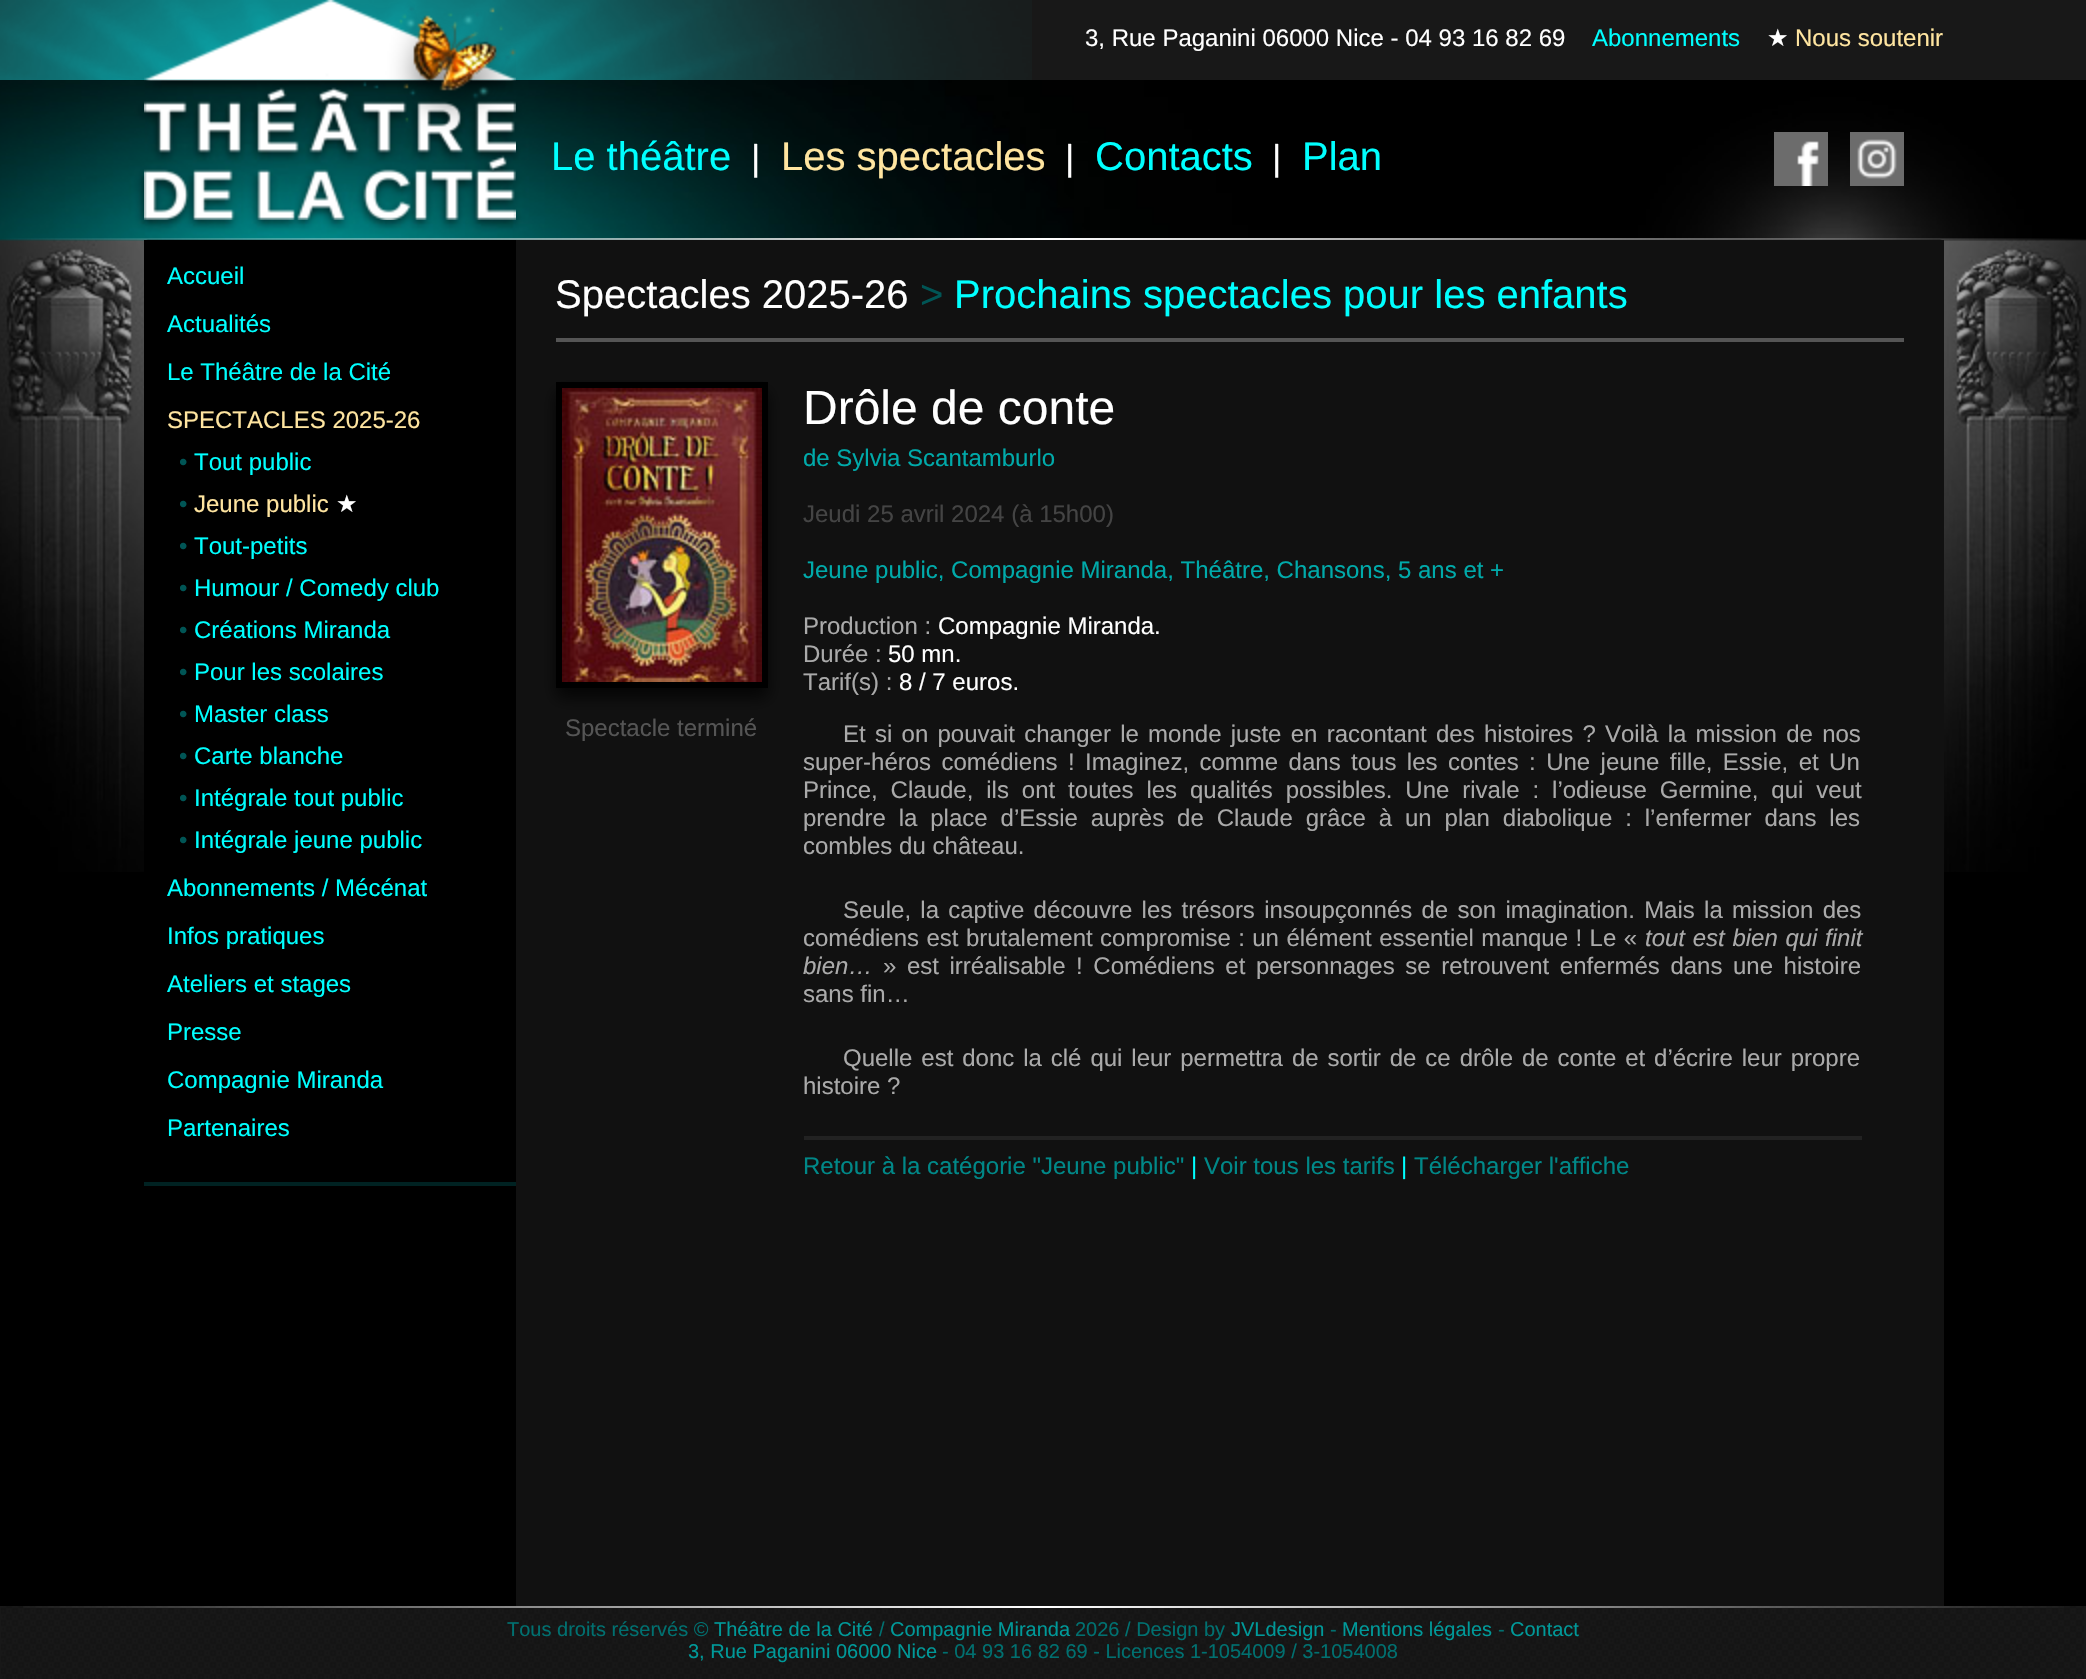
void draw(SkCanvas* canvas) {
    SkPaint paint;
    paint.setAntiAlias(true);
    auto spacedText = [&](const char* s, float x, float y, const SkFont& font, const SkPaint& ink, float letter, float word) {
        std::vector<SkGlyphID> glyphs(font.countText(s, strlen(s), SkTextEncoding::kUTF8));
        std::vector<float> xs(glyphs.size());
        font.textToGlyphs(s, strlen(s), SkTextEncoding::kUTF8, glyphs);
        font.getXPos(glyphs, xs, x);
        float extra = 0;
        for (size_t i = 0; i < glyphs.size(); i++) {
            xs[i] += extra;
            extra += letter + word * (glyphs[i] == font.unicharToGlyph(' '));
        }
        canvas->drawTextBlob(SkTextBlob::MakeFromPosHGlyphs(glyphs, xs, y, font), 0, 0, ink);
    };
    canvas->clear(0xFF181818);
    canvas->drawImageRect(SkImages::DeferredFromEncodedData(SkData::MakeFromFileName("img1.png")), SkRect::MakeXYWH(1, 1606, 2083, 73), SkSamplingOptions());
    canvas->drawImageRect(SkImages::DeferredFromEncodedData(SkData::MakeFromFileName("img2.png")), SkRect::MakeXYWH(0, 0, 1032, 80), SkSamplingOptions());
    paint.setColor(0xFF000000);
    canvas->drawRect(SkRect::MakeXYWH(0, 872, 2086, 734), paint);
    canvas->drawImageRect(SkImages::DeferredFromEncodedData(SkData::MakeFromFileName("img3.png")), SkRect::MakeXYWH(0, 80, 2086, 792), SkSamplingOptions());
    canvas->drawImageRect(SkImages::DeferredFromEncodedData(SkData::MakeFromFileName("img4.png")), SkRect::MakeXYWH(144, 0, 372, 220), SkSamplingOptions());
    SkFont font1(fontMgr->matchFamilyStyle("Liberation Sans", SkFontStyle::Normal()), 24);
    font1.setSubpixel(true);
    paint.setColor(0xFFFFFFFF);
    canvas->drawString("3, Rue Paganini 06000 Nice - 04 93 16 82 69", 1085, 46, font1, paint);
    paint.setColor(0xFF00FFFF);
    canvas->drawString("Abonnements", 1592, 46, font1, paint);
    SkFont font2(fontMgr->matchFamilyStyle("DejaVu Sans", SkFontStyle::Normal()), 24);
    font2.setSubpixel(true);
    paint.setColor(0xFFFFFFFF);
    canvas->drawString("★", 1767, 46, font2, paint);
    paint.setColor(0xFFFFE5A0);
    canvas->drawString("Nous soutenir", 1795, 46, font1, paint);
    SkFont font3(fontMgr->matchFamilyStyle("Liberation Sans", SkFontStyle::Normal()), 40);
    font3.setSubpixel(true);
    paint.setColor(0xFF00FFFF);
    canvas->drawString("Le théâtre", 551, 170, font3, paint);
    SkFont font4(fontMgr->matchFamilyStyle("Liberation Sans", SkFontStyle::Normal()), 36);
    font4.setSubpixel(true);
    paint.setColor(0xFFFFFFFF);
    canvas->drawString("|", 751, 170, font4, paint);
    paint.setColor(0xFFFFE5A0);
    canvas->drawString("Les spectacles", 781, 170, font3, paint);
    paint.setColor(0xFFFFFFFF);
    canvas->drawString("|", 1065, 170, font4, paint);
    paint.setColor(0xFF00FFFF);
    canvas->drawString("Contacts", 1095, 170, font3, paint);
    paint.setColor(0xFFFFFFFF);
    canvas->drawString("|", 1272, 170, font4, paint);
    paint.setColor(0xFF00FFFF);
    canvas->drawString("Plan", 1302, 170, font3, paint);
    canvas->drawImageRect(SkImages::DeferredFromEncodedData(SkData::MakeFromFileName("img5.png")), SkRect::MakeXYWH(1774, 132, 54, 54), SkSamplingOptions());
    canvas->drawImageRect(SkImages::DeferredFromEncodedData(SkData::MakeFromFileName("img6.png")), SkRect::MakeXYWH(1850, 132, 54, 54), SkSamplingOptions());
    paint.setColor(0xFF000000);
    canvas->drawRect(SkRect::MakeXYWH(144, 240, 372, 632), paint);
    paint.setColor(0xFF00FFFF);
    canvas->drawString("Accueil", 167, 284, font1, paint);
    canvas->drawString("Actualités", 167, 332, font1, paint);
    canvas->drawString("Le Théâtre de la Cité", 167, 380, font1, paint);
    paint.setColor(0xFFFFE5A0);
    canvas->drawString("SPECTACLES 2025-26", 167, 428, font1, paint);
    paint.setColor(0xFF005555);
    canvas->drawString("•", 179, 470, font1, paint);
    paint.setColor(0xFF00FFFF);
    canvas->drawString("Tout public", 194, 470, font1, paint);
    paint.setColor(0xFF005555);
    canvas->drawString("•", 179, 512, font1, paint);
    paint.setColor(0xFFFFE5A0);
    canvas->drawString("Jeune public", 194, 512, font1, paint);
    paint.setColor(0xFFFFFFFF);
    canvas->drawString("★", 336, 512, font2, paint);
    paint.setColor(0xFF005555);
    canvas->drawString("•", 179, 554, font1, paint);
    paint.setColor(0xFF00FFFF);
    canvas->drawString("Tout-petits", 194, 554, font1, paint);
    paint.setColor(0xFF005555);
    canvas->drawString("•", 179, 596, font1, paint);
    paint.setColor(0xFF00FFFF);
    canvas->drawString("Humour / Comedy club", 194, 596, font1, paint);
    paint.setColor(0xFF005555);
    canvas->drawString("•", 179, 638, font1, paint);
    paint.setColor(0xFF00FFFF);
    canvas->drawString("Créations Miranda", 194, 638, font1, paint);
    paint.setColor(0xFF005555);
    canvas->drawString("•", 179, 680, font1, paint);
    paint.setColor(0xFF00FFFF);
    canvas->drawString("Pour les scolaires", 194, 680, font1, paint);
    paint.setColor(0xFF005555);
    canvas->drawString("•", 179, 722, font1, paint);
    paint.setColor(0xFF00FFFF);
    canvas->drawString("Master class", 194, 722, font1, paint);
    paint.setColor(0xFF005555);
    canvas->drawString("•", 179, 764, font1, paint);
    paint.setColor(0xFF00FFFF);
    canvas->drawString("Carte blanche", 194, 764, font1, paint);
    paint.setColor(0xFF005555);
    canvas->drawString("•", 179, 806, font1, paint);
    paint.setColor(0xFF00FFFF);
    canvas->drawString("Intégrale tout public", 194, 806, font1, paint);
    paint.setColor(0xFF005555);
    canvas->drawString("•", 179, 848, font1, paint);
    paint.setColor(0xFF00FFFF);
    canvas->drawString("Intégrale jeune public", 194, 848, font1, paint);
    canvas->drawString("Abonnements / Mécénat", 167, 896, font1, paint);
    canvas->drawString("Infos pratiques", 167, 944, font1, paint);
    canvas->drawString("Ateliers et stages", 167, 992, font1, paint);
    canvas->drawString("Presse", 167, 1040, font1, paint);
    canvas->drawString("Compagnie Miranda", 167, 1088, font1, paint);
    canvas->drawString("Partenaires", 167, 1136, font1, paint);
    paint.setColor(0xFF002222);
    canvas->drawRect(SkRect::MakeXYWH(144, 1182, 372, 4), paint);
    paint.setColor(0xFF111111);
    canvas->drawRect(SkRect::MakeXYWH(516, 240, 1428, 1366), paint);
    paint.setColor(0xFFFFFFFF);
    canvas->drawString("Spectacles 2025-26", 555, 308, font3, paint);
    paint.setColor(0xFF005555);
    canvas->drawString(">", 920, 308, font3, paint);
    paint.setColor(0xFF00FFFF);
    canvas->drawString("Prochains spectacles pour les enfants", 954, 308, font3, paint);
    paint.setColor(0xFF555555);
    canvas->drawRect(SkRect::MakeXYWH(556, 338, 1348, 4), paint);
    paint.setColor(0xFF040404);
    paint.setMaskFilter(SkMaskFilter::MakeBlur(kNormal_SkBlurStyle, 8));
    canvas->drawRect(SkRect::MakeXYWH(556, 392, 212, 306), paint);
    paint.setMaskFilter(nullptr);
    paint.setStyle(SkPaint::kStroke_Style);
    paint.setStrokeWidth(6);
    paint.setColor(0xFF000000);
    canvas->drawRect(SkRect::MakeXYWH(559, 385, 206, 300), paint);
    canvas->drawImageRect(SkImages::DeferredFromEncodedData(SkData::MakeFromFileName("img7.png")), SkRect::MakeXYWH(562, 388, 200, 294), SkSamplingOptions());
    paint.setStyle(SkPaint::kFill_Style);
    paint.setColor(0xFF555555);
    canvas->drawString("Spectacle terminé", 565, 736, font1, paint);
    SkFont font5(fontMgr->matchFamilyStyle("Liberation Sans", SkFontStyle::Normal()), 48);
    font5.setSubpixel(true);
    paint.setColor(0xFFFFFFFF);
    canvas->drawString("Drôle de conte", 803, 424, font5, paint);
    paint.setColor(0xFF00AAAA);
    canvas->drawString("de Sylvia Scantamburlo", 803, 466, font1, paint);
    paint.setColor(0xFF444444);
    canvas->drawString("Jeudi 25 avril 2024 (à 15h00)", 803, 522, font1, paint);
    paint.setColor(0xFF00AAAA);
    canvas->drawString("Jeune public, Compagnie Miranda, Théâtre, Chansons, 5 ans et +", 803, 578, font1, paint);
    paint.setColor(0xFFAAAAAA);
    canvas->drawString("Production :", 803, 634, font1, paint);
    paint.setColor(0xFFFFFFFF);
    canvas->drawString("Compagnie Miranda.", 938, 634, font1, paint);
    paint.setColor(0xFFAAAAAA);
    canvas->drawString("Durée :", 803, 662, font1, paint);
    paint.setColor(0xFFFFFFFF);
    canvas->drawString("50 mn.", 888, 662, font1, paint);
    paint.setColor(0xFFAAAAAA);
    canvas->drawString("Tarif(s) :", 803, 690, font1, paint);
    paint.setColor(0xFFFFFFFF);
    canvas->drawString("8 / 7 euros.", 899, 690, font1, paint);
    paint.setColor(0xFFAAAAAA);
    spacedText("Et si on pouvait changer le monde juste en racontant des histoires ?", 843, 742, font1, paint, 0, 2.6f);
    spacedText("Voilà la mission de nos", 1605, 742, font1, paint, 0, 2.6f);
    spacedText("super-héros comédiens ! Imaginez, comme dans tous les contes : Une jeune fille, Essie, et Un", 803, 770, font1, paint, 0, 3.75f);
    spacedText("Prince, Claude, ils ont toutes les qualités possibles. Une rivale : l’odieuse Germine, qui veut", 803, 798, font1, paint, 0, 6.25f);
    spacedText("prendre la place d’Essie auprès de Claude grâce à un plan diabolique : l’enfermer dans les", 803, 826, font1, paint, 0, 6.25f);
    canvas->drawString("combles du château.", 803, 854, font1, paint);
    spacedText("Seule, la captive découvre les trésors insoupçonnés de son imagination. Mais la mission des", 843, 918, font1, paint, 0, 2.6f);
    spacedText("comédiens est brutalement compromise : un élément essentiel manque ! Le «", 803, 946, font1, paint, 0, 0.75f);
    SkFont font6(fontMgr->matchFamilyStyle("Liberation Sans", SkFontStyle::Italic()), 24);
    font6.setSubpixel(true);
    spacedText("tout est bien qui finit", 1645, 946, font6, paint, 0, 1);
    canvas->drawString("bien…", 803, 974, font6, paint);
    spacedText("» est irréalisable ! Comédiens et personnages se retrouvent enfermés dans une histoire", 883, 974, font1, paint, 0, 3.9f);
    canvas->drawString("sans fin…", 803, 1002, font1, paint);
    spacedText("Quelle est donc la clé qui leur permettra de sortir de ce drôle de conte et d’écrire leur propre", 843, 1066, font1, paint, 0, 2.25f);
    canvas->drawString("histoire ?", 803, 1094, font1, paint);
    paint.setColor(0xFF222222);
    canvas->drawRect(SkRect::MakeXYWH(804, 1136, 1058, 4), paint);
    paint.setColor(0xFF008888);
    canvas->drawString("Retour à la catégorie \"Jeune public\"", 803, 1174, font1, paint);
    paint.setColor(0xFF00FFFF);
    canvas->drawString("|", 1191, 1174, font1, paint);
    paint.setColor(0xFF008888);
    canvas->drawString("Voir tous les tarifs", 1204, 1174, font1, paint);
    paint.setColor(0xFF00FFFF);
    canvas->drawString("|", 1401, 1174, font1, paint);
    paint.setColor(0xFF008888);
    canvas->drawString("Télécharger l'affiche", 1414, 1174, font1, paint);
    {
        const SkColor colors[] = {0x00FFFFFF, 0xFFFFFFFF, 0x00FFFFFF};
        const float stops[] = {0, 0.5f, 1};
        const SkPoint ends[] = {{0, 1607}, {2086, 1607}};
        paint.setShader(SkGradientShader::MakeLinear(ends, colors, stops, 3, SkTileMode::kClamp));
        paint.setAlpha(255);
    }
    canvas->drawRect(SkRect::MakeXYWH(23, 1606, 2041, 2), paint);
    SkFont font7(fontMgr->matchFamilyStyle("Liberation Sans", SkFontStyle::Normal()), 20);
    font7.setSubpixel(true);
    paint.setShader(nullptr);
    paint.setColor(0xFF007070);
    canvas->drawString("Tous droits réservés ©", 507, 1636, font7, paint);
    paint.setColor(0xFF009999);
    canvas->drawString("Théâtre de la Cité", 714, 1636, font7, paint);
    paint.setColor(0xFF007070);
    canvas->drawString("/", 879, 1636, font7, paint);
    paint.setColor(0xFF009999);
    canvas->drawString("Compagnie Miranda", 890, 1636, font7, paint);
    paint.setColor(0xFF007070);
    canvas->drawString("2026 / Design by", 1075, 1636, font7, paint);
    paint.setColor(0xFF009999);
    canvas->drawString("JVLdesign", 1231, 1636, font7, paint);
    paint.setColor(0xFF007070);
    canvas->drawString("-", 1330, 1636, font7, paint);
    paint.setColor(0xFF009999);
    canvas->drawString("Mentions légales", 1342, 1636, font7, paint);
    paint.setColor(0xFF007070);
    canvas->drawString("-", 1498, 1636, font7, paint);
    paint.setColor(0xFF009999);
    canvas->drawString("Contact", 1510, 1636, font7, paint);
    canvas->drawString("3, Rue Paganini 06000 Nice", 688, 1658, font7, paint);
    paint.setColor(0xFF007070);
    canvas->drawString("- 04 93 16 82 69 - Licences 1-1054009 / 3-1054008", 942, 1658, font7, paint);
}
